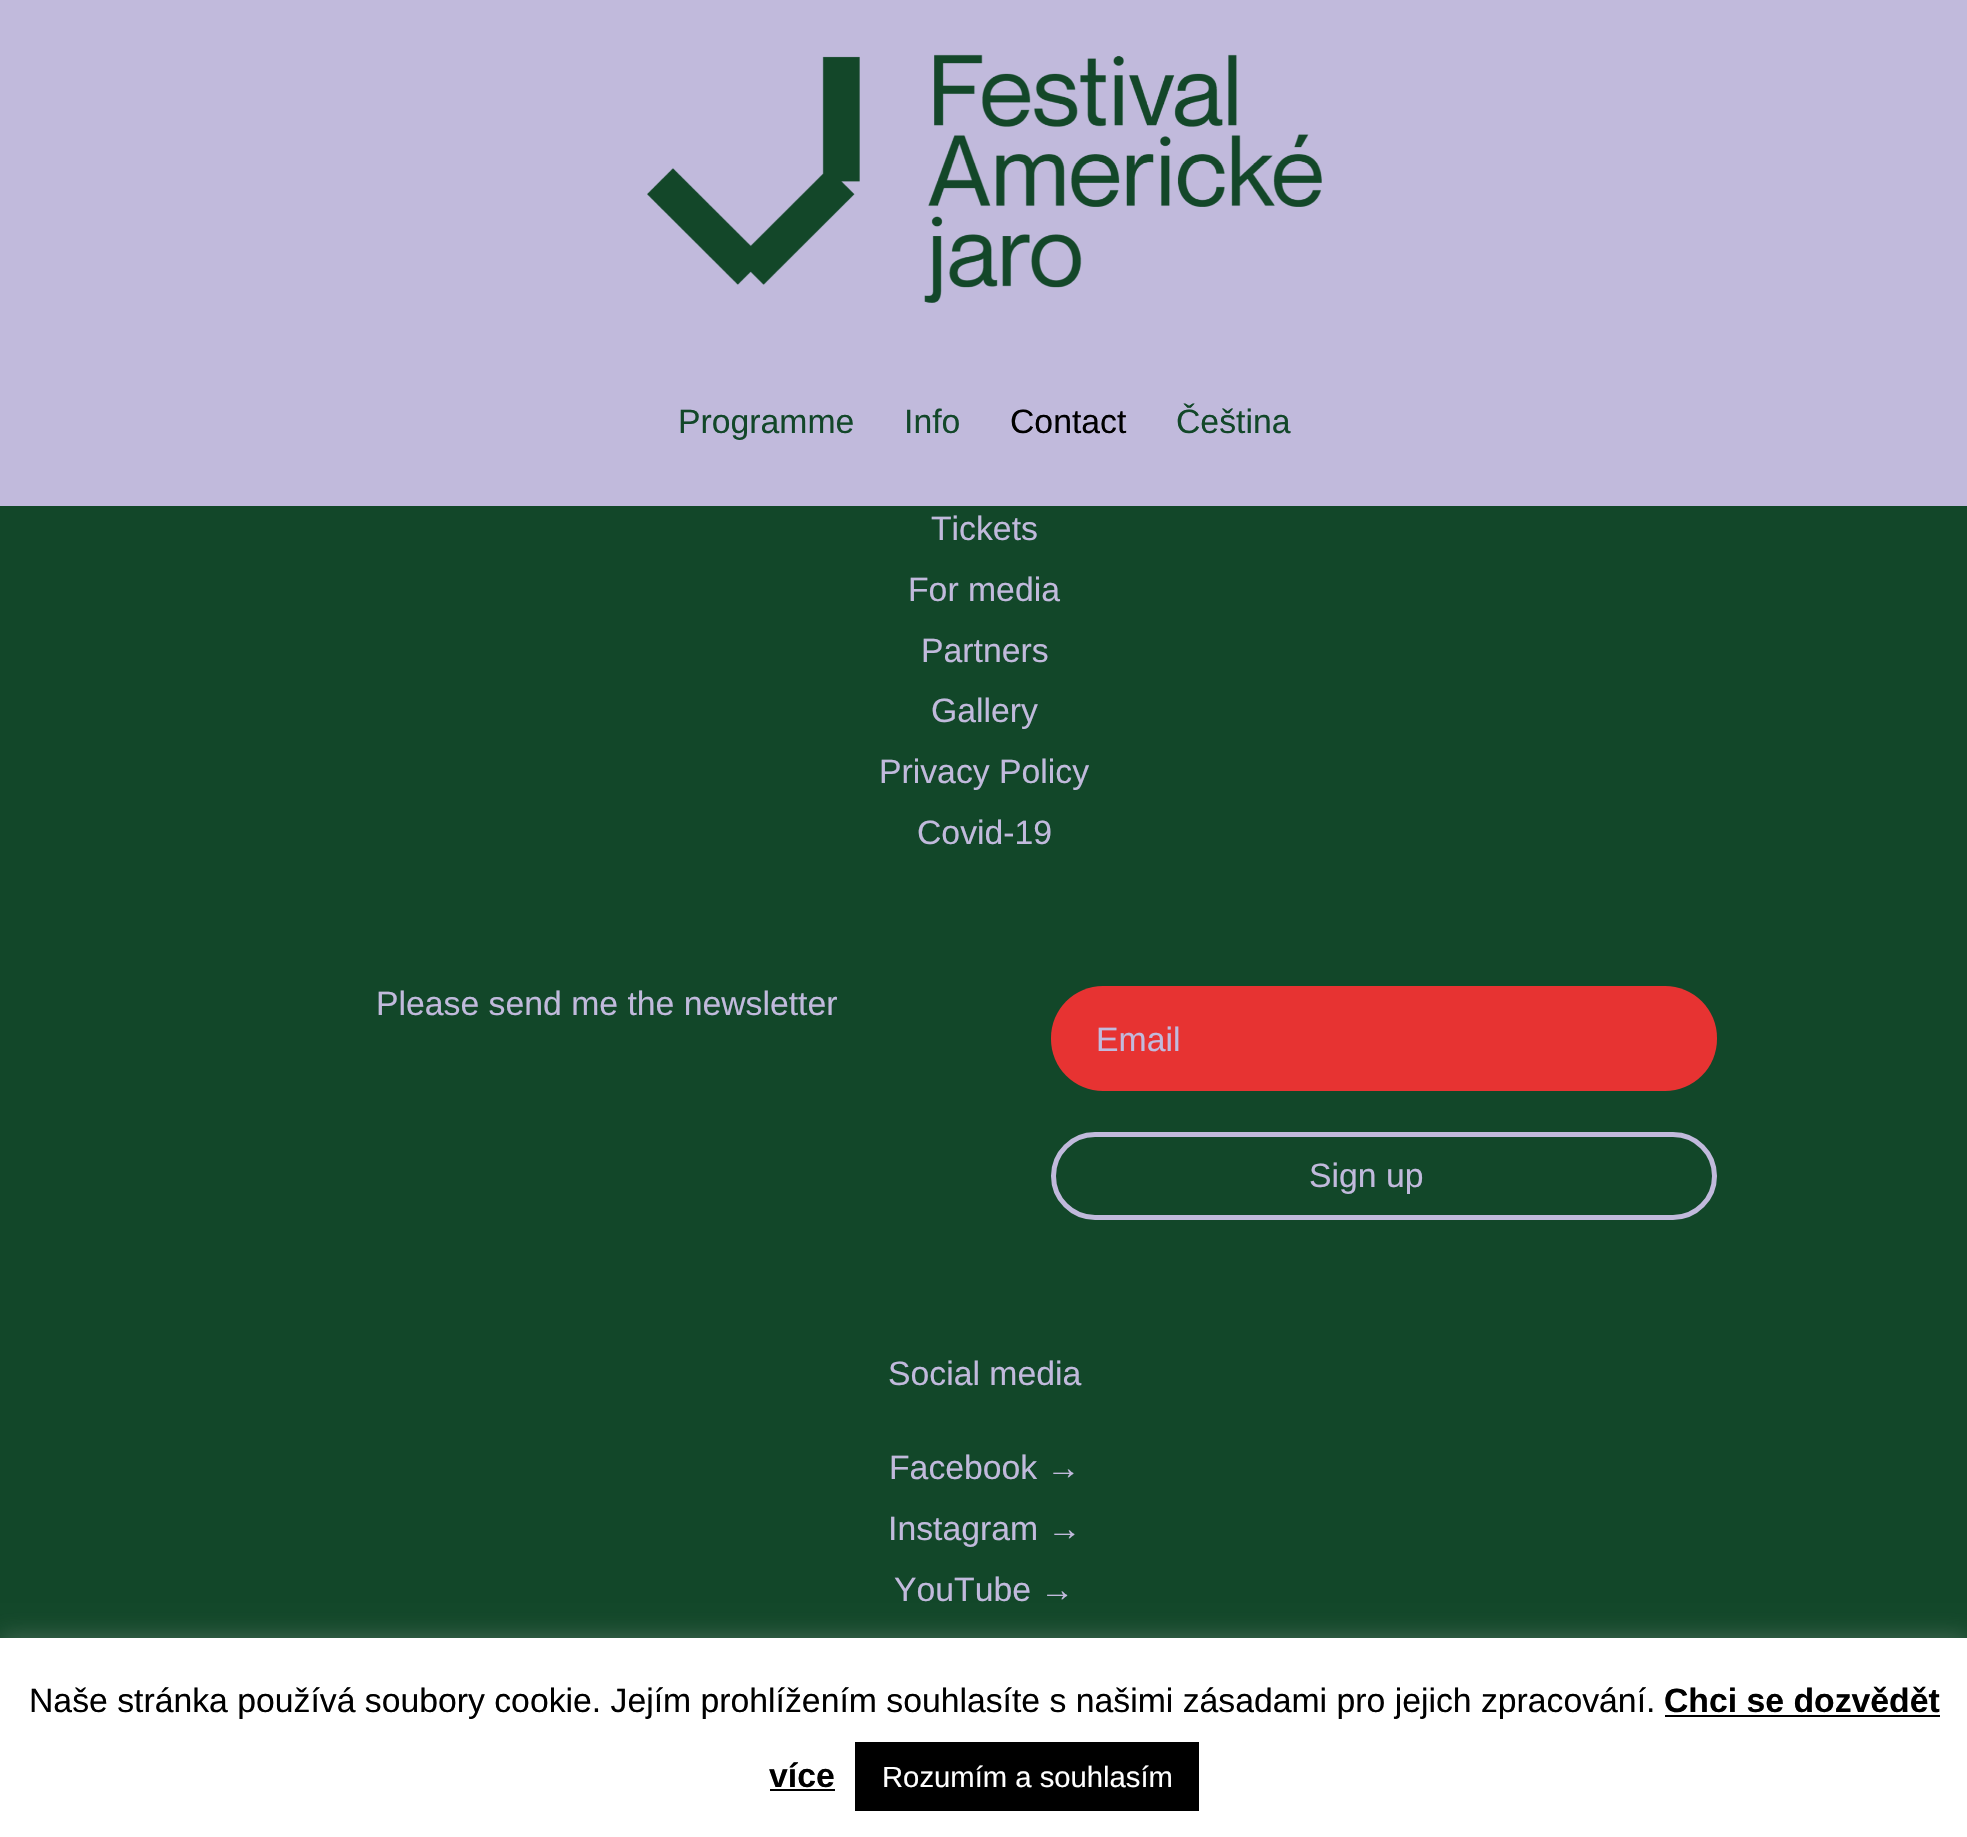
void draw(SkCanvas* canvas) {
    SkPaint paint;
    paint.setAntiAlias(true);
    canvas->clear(0xFF124729);
    paint.setColor(0xFFC1BADC);
    canvas->drawRect(SkRect::MakeXYWH(0, 0, 1967, 506), paint);
    canvas->drawImageRect(SkImages::DeferredFromEncodedData(SkData::MakeFromFileName("img1.png")), SkRect::MakeXYWH(647, 54, 675, 249), SkSamplingOptions());
    SkFont font1(fontMgr->matchFamilyStyle("Liberation Sans", SkFontStyle::Normal()), 33.75f);
    font1.setSubpixel(true);
    paint.setColor(0xFF124729);
    canvas->drawString("Programme", 678, 433, font1, paint);
    canvas->drawString("Info", 904, 433, font1, paint);
    paint.setColor(0xFF000000);
    canvas->drawString("Contact", 1010, 433, font1, paint);
    paint.setColor(0xFF124729);
    canvas->drawString("Čeština", 1176, 433, font1, paint);
    paint.setColor(0xFFC1BADC);
    canvas->drawString("Tickets", 931, 540, font1, paint);
    canvas->drawString("For media", 908, 601, font1, paint);
    canvas->drawString("Partners", 921, 662, font1, paint);
    canvas->drawString("Gallery", 931, 722, font1, paint);
    canvas->drawString("Privacy Policy", 879, 783, font1, paint);
    canvas->drawString("Covid-19", 917, 844, font1, paint);
    canvas->drawString("Please send me the newsletter", 376, 1015, font1, paint);
    paint.setColor(0xFFE73332);
    canvas->drawRoundRect(SkRect::MakeXYWH(1051, 986, 666, 105), 52, 52, paint);
    paint.setColor(0xFFC1BADC);
    canvas->drawString("Email", 1096, 1051, font1, paint);
    paint.setStyle(SkPaint::kStroke_Style);
    paint.setStrokeWidth(5);
    canvas->drawRoundRect(SkRect::MakeXYWH(1053.5f, 1134.5f, 661, 83), 41.5f, 41.5f, paint);
    paint.setStyle(SkPaint::kFill_Style);
    canvas->drawString("Sign up", 1309, 1187, font1, paint);
    canvas->drawString("Social media", 888, 1385, font1, paint);
    canvas->drawString("Facebook →", 889, 1479, font1, paint);
    canvas->drawString("Instagram →", 888, 1540, font1, paint);
    canvas->drawString("YouTube →", 894, 1601, font1, paint);
    paint.setColor(0x4DACABAB);
    paint.setMaskFilter(SkMaskFilter::MakeBlur(kNormal_SkBlurStyle, 11));
    canvas->drawRect(SkRect::MakeXYWH(0, 1636, 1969, 200), paint);
    paint.setMaskFilter(nullptr);
    paint.setColor(0xFFFFFFFF);
    canvas->drawRect(SkRect::MakeXYWH(0, 1638, 1967, 199), paint);
    paint.setColor(0xFF000000);
    canvas->drawString("Naše stránka používá soubory cookie. Jejím prohlížením souhlasíte s našimi zásadami pro jejich zpracování.", 29, 1712, font1, paint);
    SkFont font2(fontMgr->matchFamilyStyle("Liberation Sans", SkFontStyle::Bold()), 33.75f);
    font2.setSubpixel(true);
    canvas->drawString("Chci se dozvědět", 1664, 1712, font2, paint);
    canvas->drawRect(SkRect::MakeXYWH(1665, 1715, 275, 2), paint);
    canvas->drawString("více", 769, 1787, font2, paint);
    canvas->drawRect(SkRect::MakeXYWH(770, 1789, 65, 2), paint);
    canvas->drawRect(SkRect::MakeXYWH(855, 1742, 344, 69), paint);
    SkFont font3(fontMgr->matchFamilyStyle("Liberation Sans", SkFontStyle::Normal()), 29.25f);
    font3.setSubpixel(true);
    paint.setColor(0xFFFFFFFF);
    canvas->drawString("Rozumím a souhlasím", 882, 1787, font3, paint);
}
